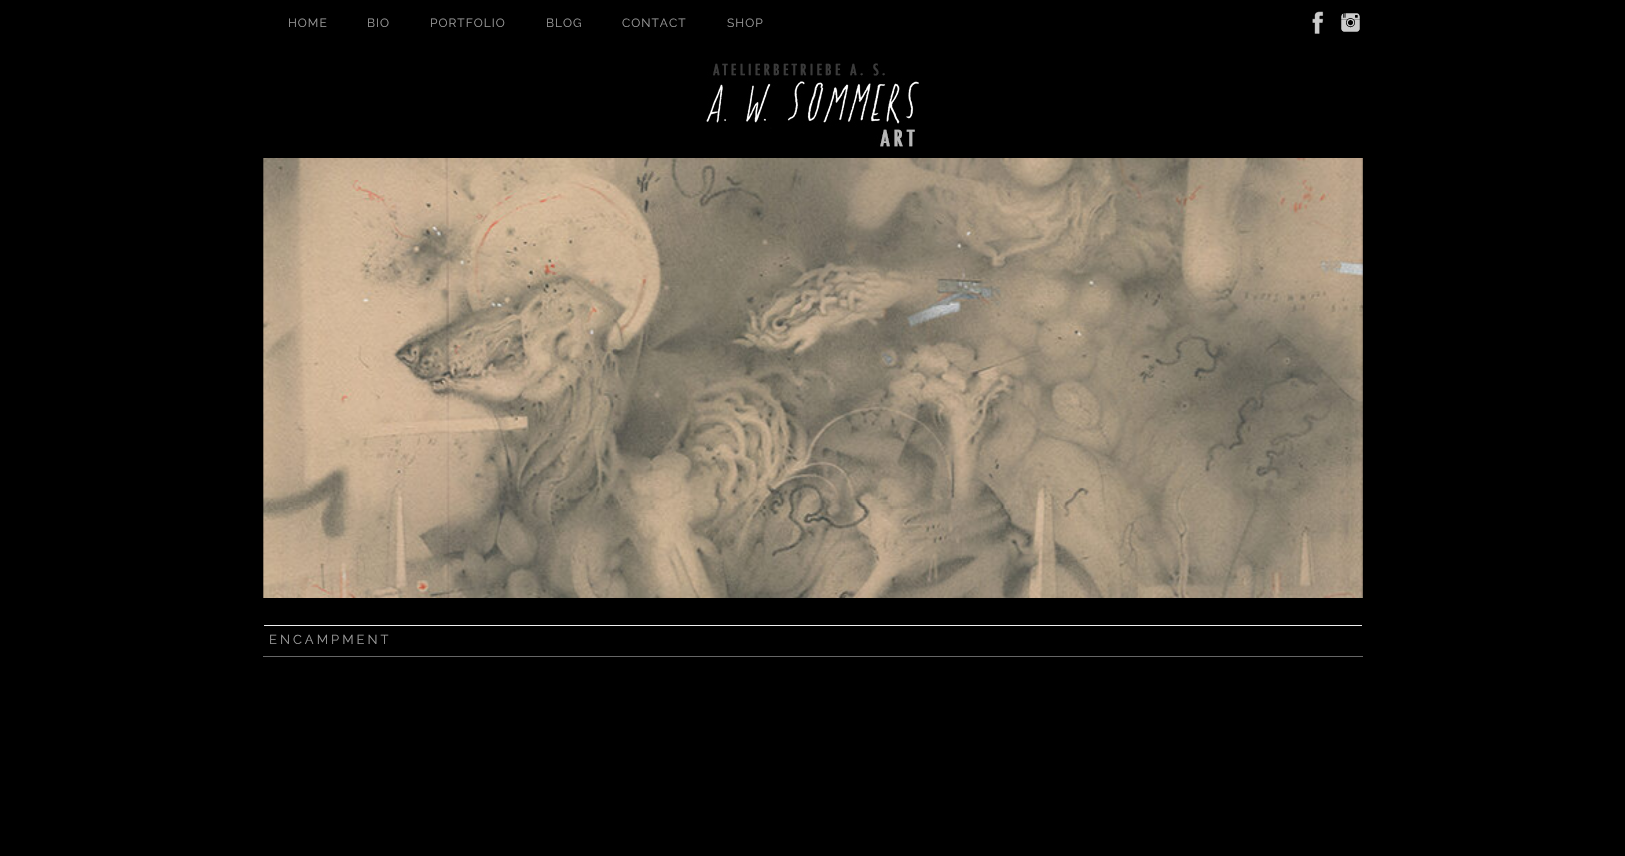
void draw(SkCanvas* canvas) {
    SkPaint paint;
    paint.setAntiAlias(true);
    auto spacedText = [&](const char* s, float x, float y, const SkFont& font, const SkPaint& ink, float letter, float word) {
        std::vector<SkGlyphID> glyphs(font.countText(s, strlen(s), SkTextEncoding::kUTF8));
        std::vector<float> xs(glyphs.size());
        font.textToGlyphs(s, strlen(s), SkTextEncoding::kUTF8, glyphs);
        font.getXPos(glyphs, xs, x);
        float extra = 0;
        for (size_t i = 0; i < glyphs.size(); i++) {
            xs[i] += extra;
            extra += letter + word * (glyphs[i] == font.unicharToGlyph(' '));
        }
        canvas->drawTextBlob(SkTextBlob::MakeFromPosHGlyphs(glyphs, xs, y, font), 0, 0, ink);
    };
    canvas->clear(0xFF000000);
    SkFont font1(fontMgr->matchFamilyStyle("Raleway", SkFontStyle(100, SkFontStyle::kNormal_Width, SkFontStyle::kUpright_Slant)), 12);
    font1.setSubpixel(true);
    paint.setColor(0xFF999999);
    spacedText("HOME", 288, 27, font1, paint, 1, 0);
    spacedText("BIO", 367, 27, font1, paint, 1, 0);
    spacedText("PORTFOLIO", 430, 27, font1, paint, 1, 0);
    spacedText("BLOG", 546, 27, font1, paint, 1, 0);
    spacedText("CONTACT", 622, 27, font1, paint, 1, 0);
    spacedText("SHOP", 727, 27, font1, paint, 1, 0);
    canvas->drawImageRect(SkImages::DeferredFromEncodedData(SkData::MakeFromFileName("img1.png")), SkRect::MakeXYWH(1312, 11, 12, 23), SkSamplingOptions());
    canvas->drawImageRect(SkImages::DeferredFromEncodedData(SkData::MakeFromFileName("img2.png")), SkRect::MakeXYWH(1341, 13, 19, 19), SkSamplingOptions());
    canvas->drawImageRect(SkImages::DeferredFromEncodedData(SkData::MakeFromFileName("img3.png")), SkRect::MakeXYWH(706, 63, 213, 84), SkSamplingOptions());
    canvas->drawImageRect(SkImages::DeferredFromEncodedData(SkData::MakeFromFileName("img4.png")), SkRect::MakeXYWH(263, 158, 1100, 440), SkSamplingOptions());
    paint.setColor(0xFFEEEEEE);
    canvas->drawRect(SkRect::MakeXYWH(264, 625, 1098, 1), paint);
    SkFont font2(fontMgr->matchFamilyStyle("Raleway", SkFontStyle(100, SkFontStyle::kNormal_Width, SkFontStyle::kUpright_Slant)), 13);
    font2.setSubpixel(true);
    paint.setColor(0xFF999999);
    spacedText("ENCAMPMENT", 269, 644, font2, paint, 3, 0);
    paint.setColor(0xFF666666);
    canvas->drawRect(SkRect::MakeXYWH(263, 656, 1100, 1), paint);
}
